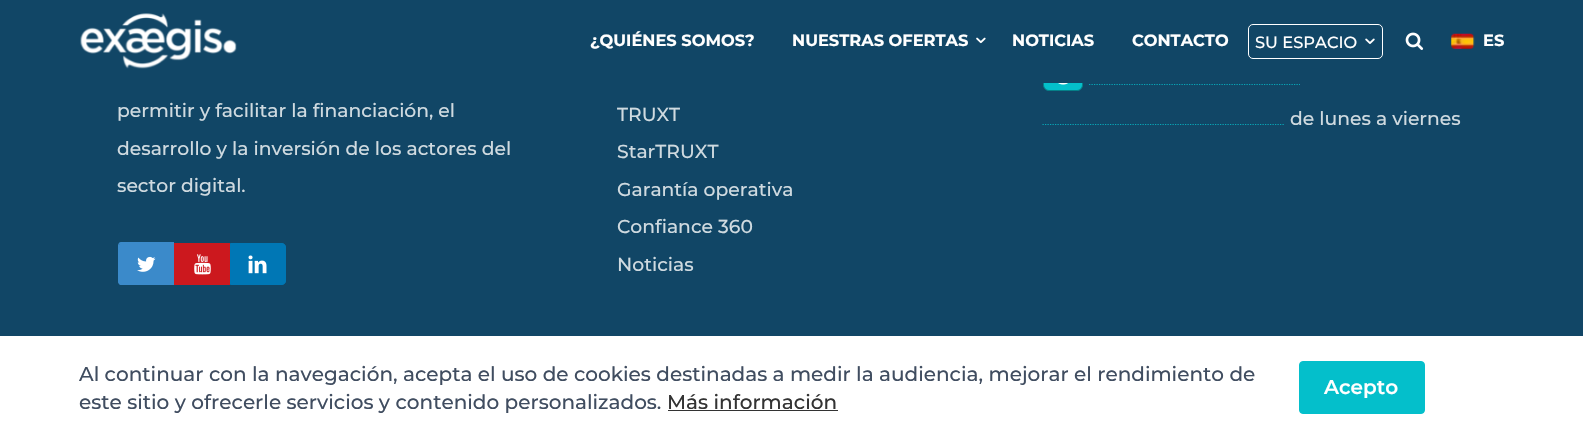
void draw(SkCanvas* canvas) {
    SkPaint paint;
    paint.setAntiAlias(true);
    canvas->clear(0xFF114666);
    paint.setColor(0xFF04BFCB);
    canvas->drawRoundRect(SkRect::MakeXYWH(1043.5f, 60.5f, 39, 30), 5.5f, 5.5f, paint);
    paint.setStyle(SkPaint::kStroke_Style);
    paint.setStrokeWidth(1);
    paint.setColor(0xFF058088);
    canvas->drawRoundRect(SkRect::MakeXYWH(1043.5f, 60.5f, 39, 30), 5.5f, 5.5f, paint);
    paint.setStyle(SkPaint::kFill_Style);
    paint.setColor(0xFF114666);
    canvas->drawRect(SkRect::MakeXYWH(1043, 60, 40, 23), paint);
    canvas->drawImageRect(SkImages::DeferredFromEncodedData(SkData::MakeFromFileName("img1.png")), SkRect::MakeXYWH(80, 13, 157, 56), SkSamplingOptions());
    SkFont font1(fontMgr->matchFamilyStyle("Montserrat", SkFontStyle::Bold()), 16.25f);
    font1.setSubpixel(true);
    paint.setColor(0xFFFFFFFF);
    canvas->drawString("¿QUIÉNES SOMOS?", 590, 46, font1, paint);
    canvas->drawString("NUESTRAS OFERTAS", 792, 46, font1, paint);
    canvas->drawImageRect(SkImages::DeferredFromEncodedData(SkData::MakeFromFileName("img2.png")), SkRect::MakeXYWH(976, 37, 10, 7), SkSamplingOptions());
    canvas->drawString("NOTICIAS", 1012, 46, font1, paint);
    canvas->drawString("CONTACTO", 1132, 46, font1, paint);
    paint.setStyle(SkPaint::kStroke_Style);
    canvas->drawRoundRect(SkRect::MakeXYWH(1248.5f, 24.5f, 134, 34), 4.5f, 4.5f, paint);
    SkFont font2(fontMgr->matchFamilyStyle("Montserrat", SkFontStyle(500, SkFontStyle::kNormal_Width, SkFontStyle::kUpright_Slant)), 16.25f);
    font2.setSubpixel(true);
    paint.setStyle(SkPaint::kFill_Style);
    canvas->drawString("SU ESPACIO", 1255, 48, font2, paint);
    canvas->drawImageRect(SkImages::DeferredFromEncodedData(SkData::MakeFromFileName("img3.png")), SkRect::MakeXYWH(1365, 38, 10, 6), SkSamplingOptions());
    canvas->drawImageRect(SkImages::DeferredFromEncodedData(SkData::MakeFromFileName("img4.png")), SkRect::MakeXYWH(1405, 32, 19, 18), SkSamplingOptions());
    canvas->drawImageRect(SkImages::DeferredFromEncodedData(SkData::MakeFromFileName("img5.png")), SkRect::MakeXYWH(1451, 33, 24, 16), SkSamplingOptions());
    canvas->drawString("ES", 1483, 46, font1, paint);
    SkFont font3(fontMgr->matchFamilyStyle("Montserrat", SkFontStyle(500, SkFontStyle::kNormal_Width, SkFontStyle::kUpright_Slant)), 18.75f);
    font3.setSubpixel(true);
    paint.setColor(0xFFCFDAE0);
    canvas->drawString("permitir y facilitar la financiación, el", 117, 117, font3, paint);
    canvas->drawString("desarrollo y la inversión de los actores del", 117, 155, font3, paint);
    canvas->drawString("sector digital.", 117, 192, font3, paint);
    paint.setColor(0xFF3B8ACA);
    canvas->drawPath(SkPathBuilder().moveTo(122, 243).lineTo(174, 243).lineTo(174, 285).lineTo(122, 285).cubicTo(120, 285, 118, 283, 118, 281).lineTo(118, 247).cubicTo(118, 245, 120, 243, 122, 243).close().detach(), paint);
    canvas->drawPath(SkPathBuilder(SkPathFillType::kEvenOdd).moveTo(121, 242).lineTo(174, 242).lineTo(174, 285).lineTo(121, 285).cubicTo(119, 285, 118, 283, 118, 281).lineTo(118, 246).cubicTo(118, 244, 119, 242, 121, 242).close().moveTo(121, 244).lineTo(174, 244).lineTo(174, 284).cubicTo(168, 284, 122, 285, 120, 283).lineTo(119, 282).lineTo(119, 246).lineTo(119, 244).close().detach(), paint);
    canvas->drawImageRect(SkImages::DeferredFromEncodedData(SkData::MakeFromFileName("img6.png")), SkRect::MakeXYWH(137, 256, 19, 16), SkSamplingOptions());
    paint.setColor(0xFFCC181E);
    canvas->drawRect(SkRect::MakeXYWH(174, 243, 56, 42), paint);
    canvas->drawImageRect(SkImages::DeferredFromEncodedData(SkData::MakeFromFileName("img7.png")), SkRect::MakeXYWH(194, 254, 17, 21), SkSamplingOptions());
    paint.setColor(0xFF0077B5);
    canvas->drawPath(SkPathBuilder().moveTo(230.5f, 243.5f).lineTo(282, 243.5f).cubicTo(284, 243.5f, 285.5f, 245, 285.5f, 247).lineTo(285.5f, 281).cubicTo(285.5f, 283, 284, 284.5f, 282, 284.5f).lineTo(230.5f, 284.5f).close().detach(), paint);
    paint.setStyle(SkPaint::kStroke_Style);
    canvas->drawPath(SkPathBuilder().moveTo(230.5f, 243.5f).lineTo(282, 243.5f).cubicTo(284, 243.5f, 285.5f, 245, 285.5f, 247).lineTo(285.5f, 281).cubicTo(285.5f, 283, 284, 284.5f, 282, 284.5f).lineTo(230.5f, 284.5f).close().detach(), paint);
    canvas->drawImageRect(SkImages::DeferredFromEncodedData(SkData::MakeFromFileName("img8.png")), SkRect::MakeXYWH(248, 255, 19, 19), SkSamplingOptions());
    paint.setStyle(SkPaint::kFill_Style);
    paint.setColor(0xFFCFDAE0);
    canvas->drawString("TRUXT", 617, 121, font3, paint);
    canvas->drawString("StarTRUXT", 617, 158, font3, paint);
    canvas->drawString("Garantía operativa", 617, 196, font3, paint);
    canvas->drawString("Confiance 360", 617, 233, font3, paint);
    canvas->drawString("Noticias", 617, 271, font3, paint);
    canvas->drawImageRect(SkImages::DeferredFromEncodedData(SkData::MakeFromFileName("img9.png")), SkRect::MakeXYWH(1058, 83, 10, 2), SkSamplingOptions());
    paint.setStyle(SkPaint::kStroke_Style);
    paint.setStrokeWidth(1.2f);
    paint.setColor(0xFF06A7B7);
    paint.setPathEffect(SkDashPathEffect::Make({{1.25f, 1.25f}}, 0));
    canvas->drawPath(SkPathBuilder().moveTo(1089, 84.5f).lineTo(1300, 84.5f).detach(), paint);
    paint.setPathEffect(nullptr);
    paint.setPathEffect(SkDashPathEffect::Make({{1.25f, 1.25f}}, 0));
    canvas->drawPath(SkPathBuilder().moveTo(1042.5f, 124.5f).lineTo(1284, 124.5f).detach(), paint);
    paint.setPathEffect(nullptr);
    paint.setStyle(SkPaint::kFill_Style);
    paint.setColor(0xFFCFDAE0);
    canvas->drawString("de lunes a viernes", 1290, 125, font3, paint);
    paint.setColor(0xFFFFFFFF);
    canvas->drawRect(SkRect::MakeXYWH(0, 336, 1583, 105), paint);
    SkFont font4(fontMgr->matchFamilyStyle("Montserrat", SkFontStyle(500, SkFontStyle::kNormal_Width, SkFontStyle::kUpright_Slant)), 20);
    font4.setSubpixel(true);
    paint.setColor(0xFF404D60);
    canvas->drawString("Al continuar con la navegación, acepta el uso de cookies destinadas a medir la audiencia, mejorar el rendimiento de", 79, 381, font4, paint);
    canvas->drawString("este sitio y ofrecerle servicios y contenido personalizados.", 79, 409, font4, paint);
    paint.setColor(0xFF333333);
    canvas->drawString("Más información", 667, 409, font4, paint);
    canvas->drawRect(SkRect::MakeXYWH(668, 410, 170, 1), paint);
    paint.setColor(0xFF04BFCB);
    canvas->drawRoundRect(SkRect::MakeXYWH(1299.5f, 361.5f, 125, 52), 3.5f, 3.5f, paint);
    paint.setStyle(SkPaint::kStroke_Style);
    paint.setStrokeWidth(1);
    canvas->drawRoundRect(SkRect::MakeXYWH(1299.5f, 361.5f, 125, 52), 3.5f, 3.5f, paint);
    SkFont font5(fontMgr->matchFamilyStyle("Montserrat", SkFontStyle(600, SkFontStyle::kNormal_Width, SkFontStyle::kUpright_Slant)), 20);
    font5.setSubpixel(true);
    paint.setStyle(SkPaint::kFill_Style);
    paint.setColor(0xFFFFFFFF);
    canvas->drawString("Acepto", 1324, 394, font5, paint);
}
